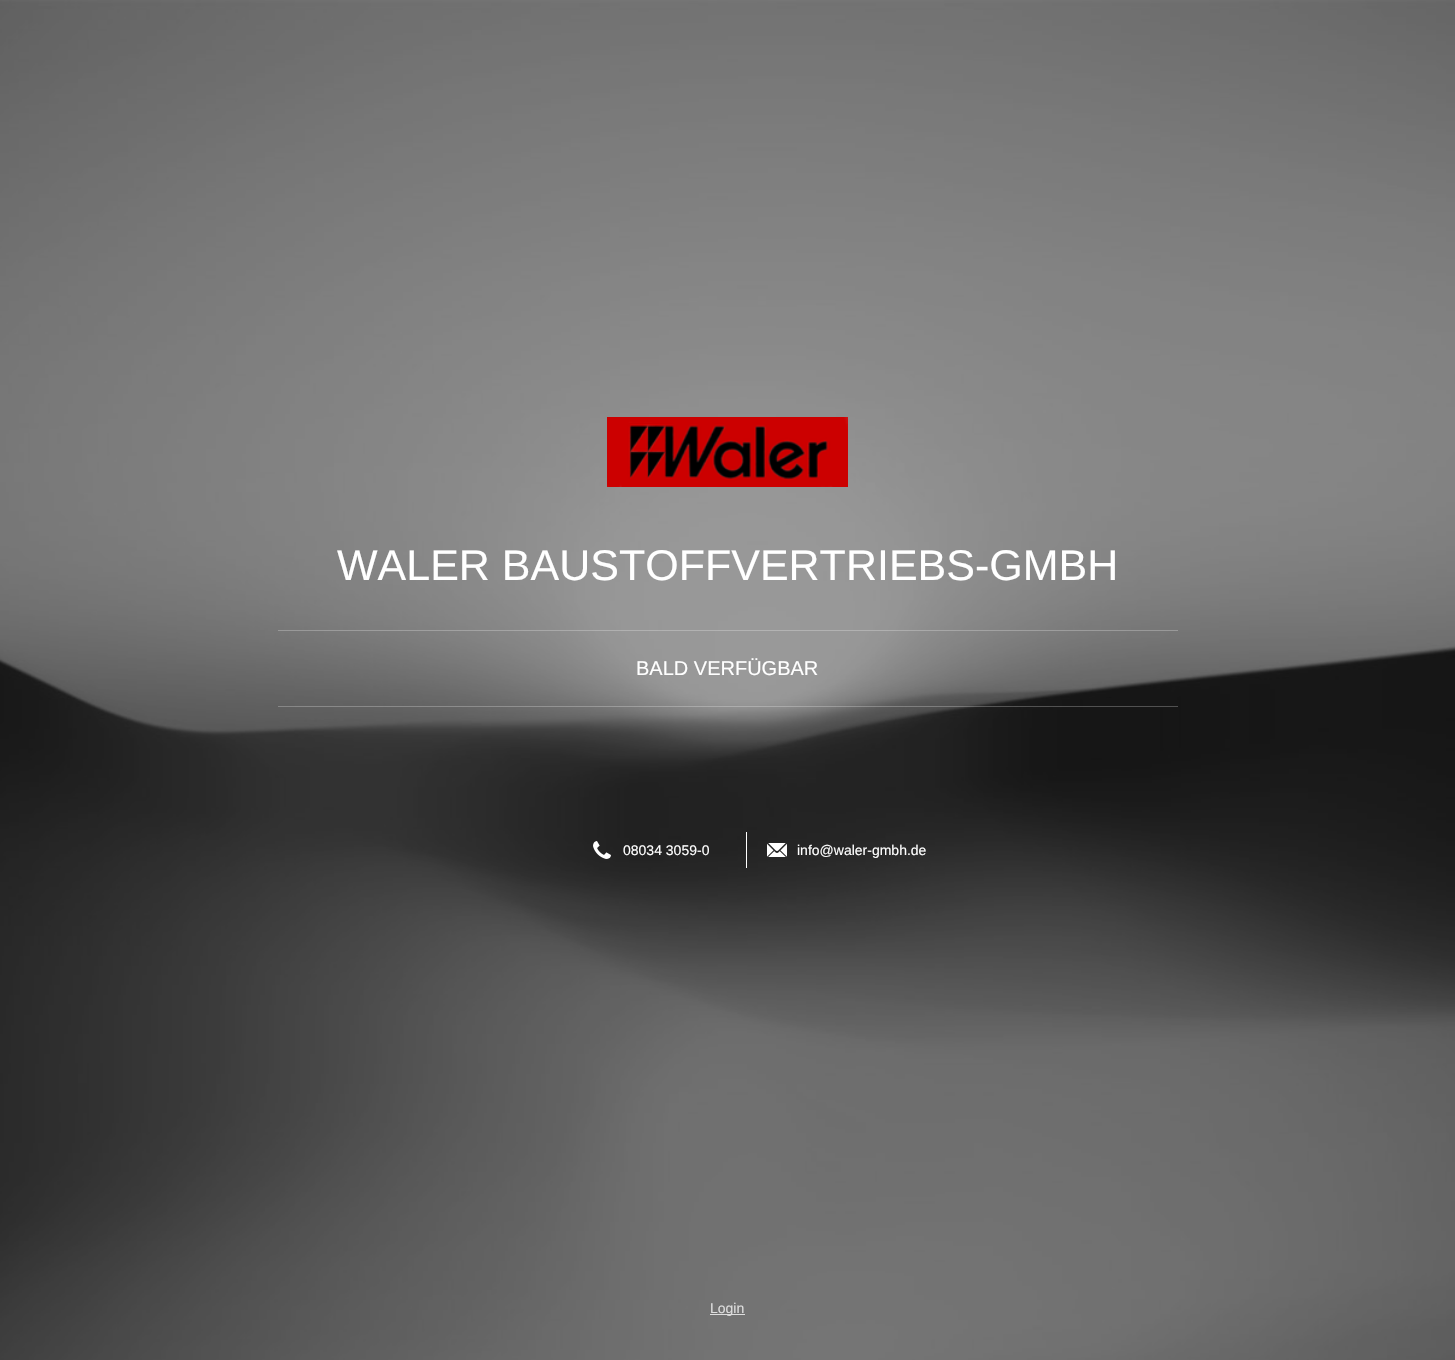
void draw(SkCanvas* canvas) {
    SkPaint paint;
    paint.setAntiAlias(true);
    canvas->clear(0xFFFFFFFF);
    canvas->drawImageRect(SkImages::DeferredFromEncodedData(SkData::MakeFromFileName("img1.png")), SkRect::MakeXYWH(0, 0, 1455, 1360), SkSamplingOptions());
    canvas->drawImageRect(SkImages::DeferredFromEncodedData(SkData::MakeFromFileName("img2.png")), SkRect::MakeXYWH(607, 417, 241, 70), SkSamplingOptions());
    SkFont font1(fontMgr->matchFamilyStyle("Liberation Sans", SkFontStyle::Normal()), 43);
    font1.setSubpixel(true);
    paint.setColor(0xFFFFFFFF);
    canvas->drawString("WALER BAUSTOFFVERTRIEBS-GMBH", 337, 580, font1, paint);
    paint.setColor(0x40FFFFFF);
    canvas->drawRect(SkRect::MakeXYWH(278, 630, 900, 1), paint);
    canvas->drawRect(SkRect::MakeXYWH(278, 706, 900, 1), paint);
    SkFont font2(fontMgr->matchFamilyStyle("Liberation Sans", SkFontStyle::Normal()), 20);
    font2.setSubpixel(true);
    paint.setColor(0xFFFFFFFF);
    canvas->drawString("BALD VERFÜGBAR", 636, 675, font2, paint);
    canvas->drawImageRect(SkImages::DeferredFromEncodedData(SkData::MakeFromFileName("img3.png")), SkRect::MakeXYWH(593, 841, 18, 18), SkSamplingOptions());
    SkFont font3(fontMgr->matchFamilyStyle("Liberation Sans", SkFontStyle::Normal()), 14);
    font3.setSubpixel(true);
    canvas->drawString("08034 3059-0", 623, 855, font3, paint);
    canvas->drawRect(SkRect::MakeXYWH(746, 832, 1, 36), paint);
    canvas->drawImageRect(SkImages::DeferredFromEncodedData(SkData::MakeFromFileName("img4.png")), SkRect::MakeXYWH(767, 843, 20, 14), SkSamplingOptions());
    canvas->drawString("info@waler-gmbh.de", 797, 855, font3, paint);
    paint.setColor(0xFFDDDDDD);
    canvas->drawRect(SkRect::MakeXYWH(710, 1314, 35, 1), paint);
    canvas->drawString("Login", 710, 1313, font3, paint);
}
